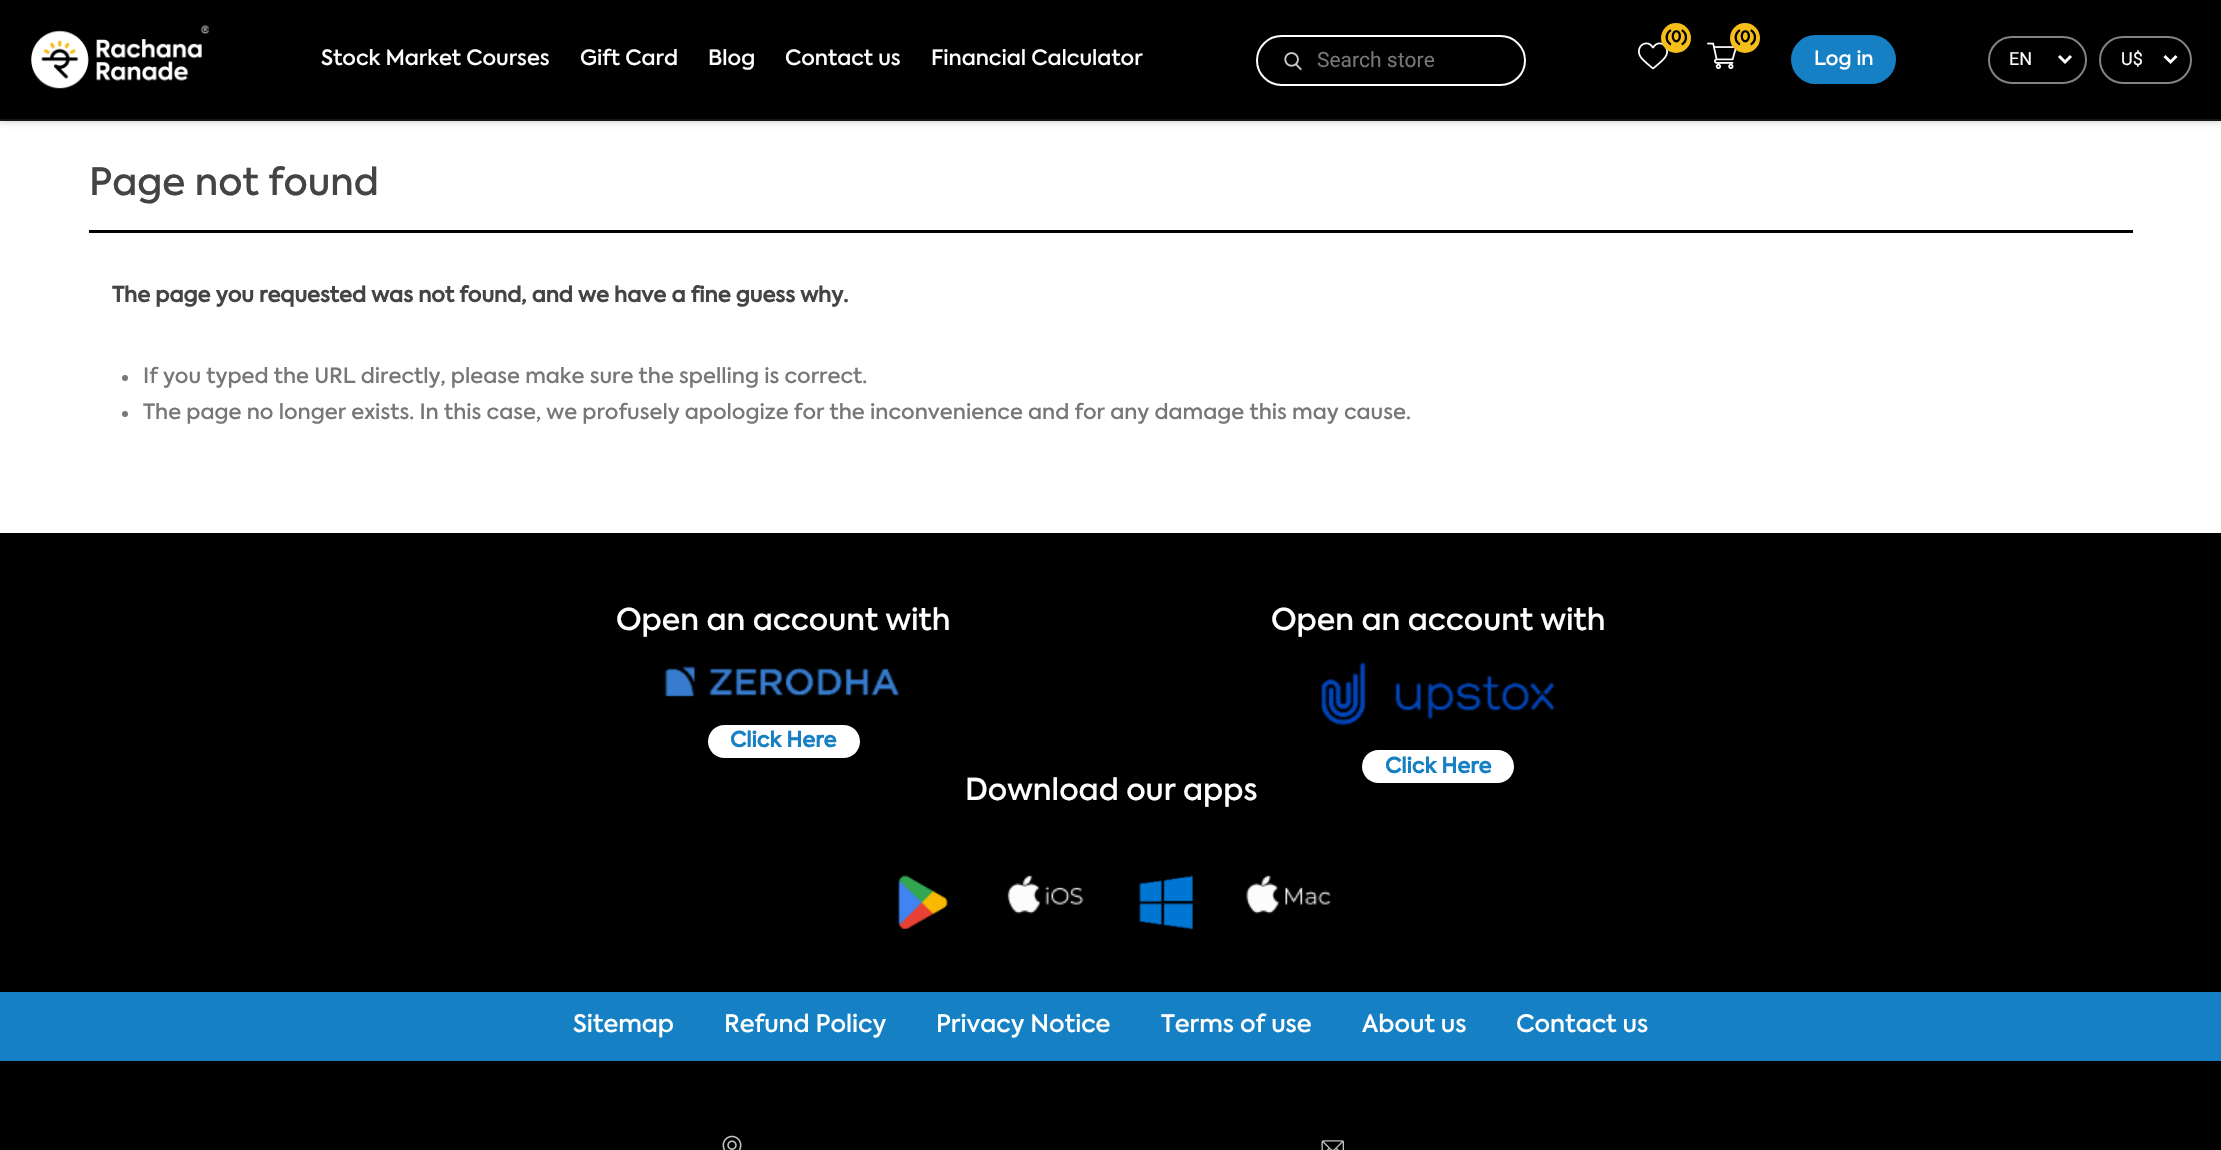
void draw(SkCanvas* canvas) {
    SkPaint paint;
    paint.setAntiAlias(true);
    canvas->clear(0xFFFFFFFF);
    paint.setColor(0x4D000000);
    paint.setMaskFilter(SkMaskFilter::MakeBlur(kNormal_SkBlurStyle, 4));
    canvas->drawRect(SkRect::MakeXYWH(0, 0, 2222, 120), paint);
    paint.setMaskFilter(nullptr);
    paint.setColor(0xFF000000);
    canvas->drawRect(SkRect::MakeXYWH(0, 0, 2221, 119), paint);
    paint.setColor(0xFF161616);
    canvas->drawRect(SkRect::MakeXYWH(0, 119, 2221, 2), paint);
    canvas->drawImageRect(SkImages::DeferredFromEncodedData(SkData::MakeFromFileName("img1.png")), SkRect::MakeXYWH(31, 25, 178, 64), SkSamplingOptions());
    SkFont font1(fontMgr->matchFamilyStyle("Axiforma", SkFontStyle(500, SkFontStyle::kNormal_Width, SkFontStyle::kUpright_Slant)), 21);
    font1.setSubpixel(true);
    paint.setColor(0xFFFFFFFF);
    canvas->drawString("Stock Market Courses", 321, 65, font1, paint);
    canvas->drawString("Gift Card", 580, 65, font1, paint);
    canvas->drawString("Blog", 708, 65, font1, paint);
    canvas->drawString("Contact us", 785, 65, font1, paint);
    canvas->drawString("Financial Calculator", 931, 65, font1, paint);
    paint.setStyle(SkPaint::kStroke_Style);
    paint.setStrokeWidth(2);
    canvas->drawRoundRect(SkRect::MakeXYWH(1257, 36, 268, 49), 24.5f, 24.5f, paint);
    canvas->drawImageRect(SkImages::DeferredFromEncodedData(SkData::MakeFromFileName("img2.png")), SkRect::MakeXYWH(1284, 52, 18, 19), SkSamplingOptions());
    SkFont font2(fontMgr->matchFamilyStyle("Roboto", SkFontStyle::Normal()), 21);
    font2.setSubpixel(true);
    paint.setStyle(SkPaint::kFill_Style);
    paint.setColor(0xFF777777);
    canvas->drawString("Search store", 1317, 67, font2, paint);
    canvas->drawImageRect(SkImages::DeferredFromEncodedData(SkData::MakeFromFileName("img3.png")), SkRect::MakeXYWH(1638, 42, 30, 28), SkSamplingOptions());
    paint.setColor(0xFFF5BE18);
    canvas->drawCircle(1676, 38, 15, paint);
    SkFont font3(fontMgr->matchFamilyStyle("Axiforma", SkFontStyle::Bold()), 15);
    font3.setSubpixel(true);
    paint.setColor(0xFF000000);
    canvas->drawString("(0)", 1665, 42, font3, paint);
    canvas->drawImageRect(SkImages::DeferredFromEncodedData(SkData::MakeFromFileName("img4.png")), SkRect::MakeXYWH(1707, 42, 30, 27), SkSamplingOptions());
    paint.setColor(0xFFF5BE18);
    canvas->drawCircle(1745, 38, 15, paint);
    paint.setColor(0xFF000000);
    canvas->drawString("(0)", 1734, 42, font3, paint);
    paint.setColor(0xFF1580C3);
    canvas->drawRoundRect(SkRect::MakeXYWH(1791, 35, 105, 49), 24.5f, 24.5f, paint);
    SkFont font4(fontMgr->matchFamilyStyle("Axiforma", SkFontStyle(500, SkFontStyle::kNormal_Width, SkFontStyle::kUpright_Slant)), 19.5f);
    font4.setSubpixel(true);
    paint.setColor(0xFFFFFFFF);
    canvas->drawString("Log in", 1814, 65, font4, paint);
    paint.setStyle(SkPaint::kStroke_Style);
    paint.setColor(0xFF838383);
    canvas->drawRoundRect(SkRect::MakeXYWH(1989, 37, 97, 46), 23, 23, paint);
    paint.setStrokeWidth(3);
    paint.setColor(0xFFFFFFFF);
    canvas->drawPath(SkPathBuilder().moveTo(2059, 56).lineTo(2065, 62).lineTo(2071, 56).detach(), paint);
    SkFont font5(fontMgr->matchFamilyStyle("Roboto", SkFontStyle::Normal()), 18);
    font5.setSubpixel(true);
    paint.setStyle(SkPaint::kFill_Style);
    canvas->drawString("EN", 2009, 65, font5, paint);
    paint.setStyle(SkPaint::kStroke_Style);
    paint.setStrokeWidth(2);
    paint.setColor(0xFF838383);
    canvas->drawRoundRect(SkRect::MakeXYWH(2100, 37, 91, 46), 23, 23, paint);
    paint.setStrokeWidth(3);
    paint.setColor(0xFFFFFFFF);
    canvas->drawPath(SkPathBuilder().moveTo(2164.5f, 56).lineTo(2170.5f, 62).lineTo(2176.5f, 56).detach(), paint);
    paint.setStyle(SkPaint::kFill_Style);
    canvas->drawString("U$", 2121, 65, font5, paint);
    paint.setColor(0xFF000000);
    canvas->drawRect(SkRect::MakeXYWH(89, 230, 2044, 3), paint);
    SkFont font6(fontMgr->matchFamilyStyle("Axiforma", SkFontStyle(500, SkFontStyle::kNormal_Width, SkFontStyle::kUpright_Slant)), 37.5f);
    font6.setSubpixel(true);
    paint.setColor(0xFF444444);
    canvas->drawString("Page not found", 89, 195, font6, paint);
    SkFont font7(fontMgr->matchFamilyStyle("Axiforma", SkFontStyle::Bold()), 21);
    font7.setSubpixel(true);
    canvas->drawString("The page you requested was not found, and we have a fine guess why.", 112, 302, font7, paint);
    paint.setColor(0xFF777777);
    canvas->drawCircle(125, 378, 3, paint);
    canvas->drawString("If you typed the URL directly, please make sure the spelling is correct.", 143, 383, font1, paint);
    canvas->drawCircle(125, 414, 3, paint);
    canvas->drawString("The page no longer exists. In this case, we profusely apologize for the inconvenience and for any damage this may cause.", 143, 419, font1, paint);
    paint.setColor(0xFF000000);
    canvas->drawRect(SkRect::MakeXYWH(0, 533, 2221, 617), paint);
    SkFont font8(fontMgr->matchFamilyStyle("Axiforma", SkFontStyle(500, SkFontStyle::kNormal_Width, SkFontStyle::kUpright_Slant)), 30);
    font8.setSubpixel(true);
    paint.setColor(0xFFFFFFFF);
    canvas->drawString("Open an account with", 616, 630, font8, paint);
    canvas->drawImageRect(SkImages::DeferredFromEncodedData(SkData::MakeFromFileName("img5.png")), SkRect::MakeXYWH(664, 666, 235, 31), SkSamplingOptions());
    canvas->drawRoundRect(SkRect::MakeXYWH(708, 725, 152, 33), 16.5f, 16.5f, paint);
    paint.setColor(0xFF1580C3);
    canvas->drawString("Click Here", 730, 747, font7, paint);
    paint.setColor(0xFFFFFFFF);
    canvas->drawString("Open an account with", 1271, 630, font8, paint);
    canvas->drawImageRect(SkImages::DeferredFromEncodedData(SkData::MakeFromFileName("img6.png")), SkRect::MakeXYWH(1321, 661, 234, 66), SkSamplingOptions());
    canvas->drawRoundRect(SkRect::MakeXYWH(1362, 750, 152, 33), 16.5f, 16.5f, paint);
    paint.setColor(0xFF1580C3);
    canvas->drawString("Click Here", 1385, 773, font7, paint);
    paint.setColor(0xFFFFFFFF);
    canvas->drawString("Download our apps", 965, 800, font8, paint);
    canvas->drawImageRect(SkImages::DeferredFromEncodedData(SkData::MakeFromFileName("img7.png")), SkRect::MakeXYWH(897, 875, 51, 55), SkSamplingOptions());
    canvas->drawImageRect(SkImages::DeferredFromEncodedData(SkData::MakeFromFileName("img8.png")), SkRect::MakeXYWH(1007, 875, 77, 39), SkSamplingOptions());
    canvas->drawImageRect(SkImages::DeferredFromEncodedData(SkData::MakeFromFileName("img9.png")), SkRect::MakeXYWH(1139, 875, 54, 55), SkSamplingOptions());
    canvas->drawImageRect(SkImages::DeferredFromEncodedData(SkData::MakeFromFileName("img10.png")), SkRect::MakeXYWH(1246, 875, 85, 39), SkSamplingOptions());
    paint.setColor(0xFF1580C3);
    canvas->drawRect(SkRect::MakeXYWH(0, 992, 2221, 69), paint);
    SkFont font9(fontMgr->matchFamilyStyle("Axiforma", SkFontStyle(500, SkFontStyle::kNormal_Width, SkFontStyle::kUpright_Slant)), 24);
    font9.setSubpixel(true);
    paint.setColor(0xFFFFFFFF);
    canvas->drawString("Sitemap", 573, 1032, font9, paint);
    canvas->drawString("Refund Policy", 724, 1032, font9, paint);
    canvas->drawString("Privacy Notice", 936, 1032, font9, paint);
    canvas->drawString("Terms of use", 1161, 1032, font9, paint);
    canvas->drawString("About us", 1362, 1032, font9, paint);
    canvas->drawString("Contact us", 1516, 1032, font9, paint);
    canvas->drawImageRect(SkImages::DeferredFromEncodedData(SkData::MakeFromFileName("img11.png")), SkRect::MakeXYWH(722, 1135, 20, 15), SkSamplingOptions());
    canvas->drawImageRect(SkImages::DeferredFromEncodedData(SkData::MakeFromFileName("img12.png")), SkRect::MakeXYWH(1321, 1140, 23, 10), SkSamplingOptions());
}
